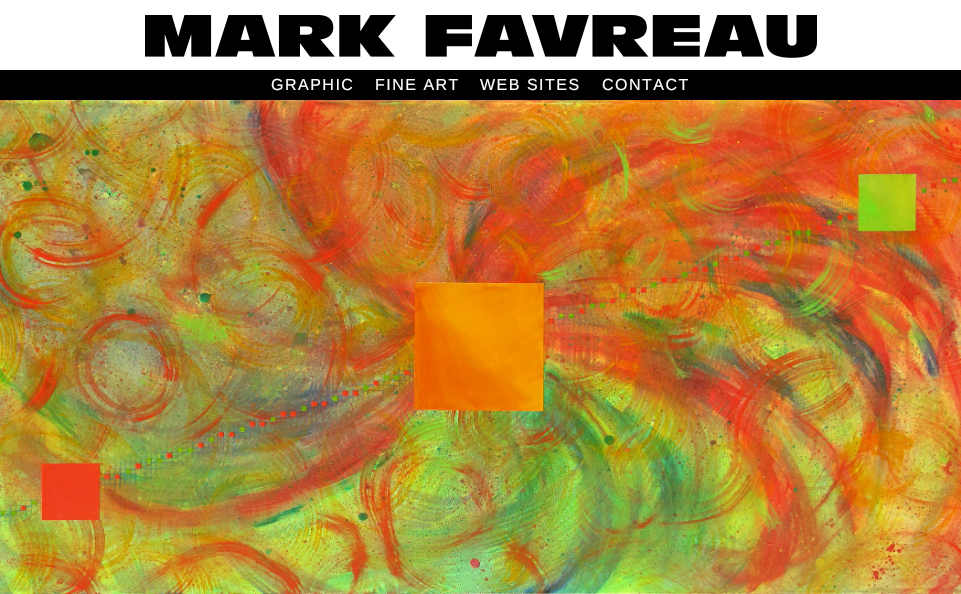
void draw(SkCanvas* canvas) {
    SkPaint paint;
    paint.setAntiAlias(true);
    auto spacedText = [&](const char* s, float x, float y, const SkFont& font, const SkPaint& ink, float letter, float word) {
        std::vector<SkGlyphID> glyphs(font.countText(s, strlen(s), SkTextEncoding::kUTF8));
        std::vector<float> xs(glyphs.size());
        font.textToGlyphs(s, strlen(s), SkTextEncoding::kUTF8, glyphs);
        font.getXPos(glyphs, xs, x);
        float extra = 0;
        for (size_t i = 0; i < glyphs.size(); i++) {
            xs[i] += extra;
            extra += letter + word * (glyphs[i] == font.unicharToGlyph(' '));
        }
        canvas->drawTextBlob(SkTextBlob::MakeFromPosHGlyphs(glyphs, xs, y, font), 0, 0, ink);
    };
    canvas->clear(0xFFFFFFFF);
    canvas->drawImageRect(SkImages::DeferredFromEncodedData(SkData::MakeFromFileName("img1.png")), SkRect::MakeXYWH(145, 15, 672, 43), SkSamplingOptions());
    paint.setColor(0xFF000000);
    canvas->drawRect(SkRect::MakeXYWH(0, 70, 961, 30), paint);
    SkFont font1(fontMgr->matchFamilyStyle("Liberation Sans", SkFontStyle::Normal()), 16);
    font1.setSubpixel(true);
    paint.setColor(0xFFFFFFFF);
    spacedText("GRAPHIC", 271, 90, font1, paint, 1.5f, 0);
    spacedText("FINE ART", 375, 90, font1, paint, 1.5f, 0);
    spacedText("WEB SITES", 480, 90, font1, paint, 1.5f, 0);
    spacedText("CONTACT", 602, 90, font1, paint, 1.5f, 0);
    canvas->drawImageRect(SkImages::DeferredFromEncodedData(SkData::MakeFromFileName("img2.png")), SkRect::MakeXYWH(0, 100, 961, 494), SkSamplingOptions());
}
